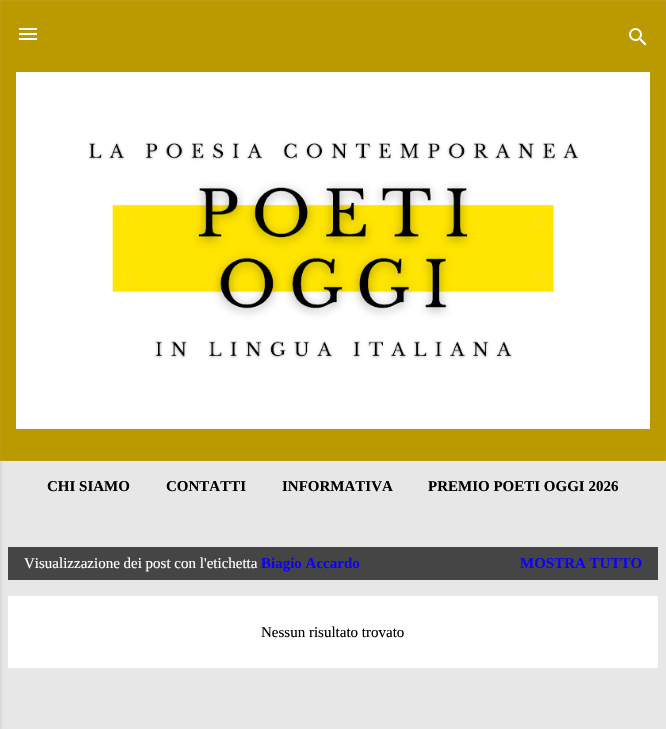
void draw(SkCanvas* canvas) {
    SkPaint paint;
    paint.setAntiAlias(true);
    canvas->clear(0xFFE7E7E7);
    paint.setColor(0x1A000000);
    paint.setMaskFilter(SkMaskFilter::MakeBlur(kNormal_SkBlurStyle, 1.5f));
    canvas->drawRect(SkRect::MakeXYWH(-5, 1, 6, 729), paint);
    paint.setMaskFilter(nullptr);
    canvas->save();
    canvas->clipRect(SkRect::MakeXYWH(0, 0, 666, 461));
    paint.setColor(0xFFBB9900);
    paint.setMaskFilter(SkMaskFilter::MakeBlur(kNormal_SkBlurStyle, 1));
    canvas->drawRect(SkRect::MakeXYWH(-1, -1, 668, 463), paint);
    paint.setMaskFilter(nullptr);
    canvas->restore();
    canvas->drawImageRect(SkImages::DeferredFromEncodedData(SkData::MakeFromFileName("img1.png")), SkRect::MakeXYWH(19, 28, 18, 12), SkSamplingOptions());
    canvas->drawImageRect(SkImages::DeferredFromEncodedData(SkData::MakeFromFileName("img2.png")), SkRect::MakeXYWH(629, 28, 18, 18), SkSamplingOptions());
    canvas->drawImageRect(SkImages::DeferredFromEncodedData(SkData::MakeFromFileName("img3.png")), SkRect::MakeXYWH(16, 72, 634, 357), SkSamplingOptions());
    SkFont font1(fontMgr->matchFamilyStyle("Liberation Serif", SkFontStyle::Bold()), 15);
    font1.setSubpixel(true);
    paint.setColor(0xFF000000);
    canvas->drawString("CHI SIAMO", 47, 491, font1, paint);
    canvas->drawString("CONTATTI", 166, 491, font1, paint);
    canvas->drawString("INFORMATIVA", 282, 491, font1, paint);
    canvas->drawString("PREMIO POETI OGGI 2026", 428, 491, font1, paint);
    paint.setColor(0xFF454545);
    canvas->drawRect(SkRect::MakeXYWH(8, 547, 650, 33), paint);
    SkFont font2(fontMgr->matchFamilyStyle("Liberation Serif", SkFontStyle::Normal()), 15);
    font2.setSubpixel(true);
    paint.setColor(0xFFFFFFFF);
    canvas->drawString("Visualizzazione dei post con l'etichetta", 24, 568, font2, paint);
    paint.setColor(0xFF0D00FF);
    canvas->drawString("Biagio Accardo", 261, 568, font1, paint);
    canvas->drawString("MOSTRA TUTTO", 520, 568, font1, paint);
    paint.setColor(0xFFFFFFFF);
    canvas->drawRect(SkRect::MakeXYWH(8, 596, 650, 72), paint);
    paint.setColor(0xFF000000);
    canvas->drawString("Nessun risultato trovato", 261, 637, font2, paint);
}
